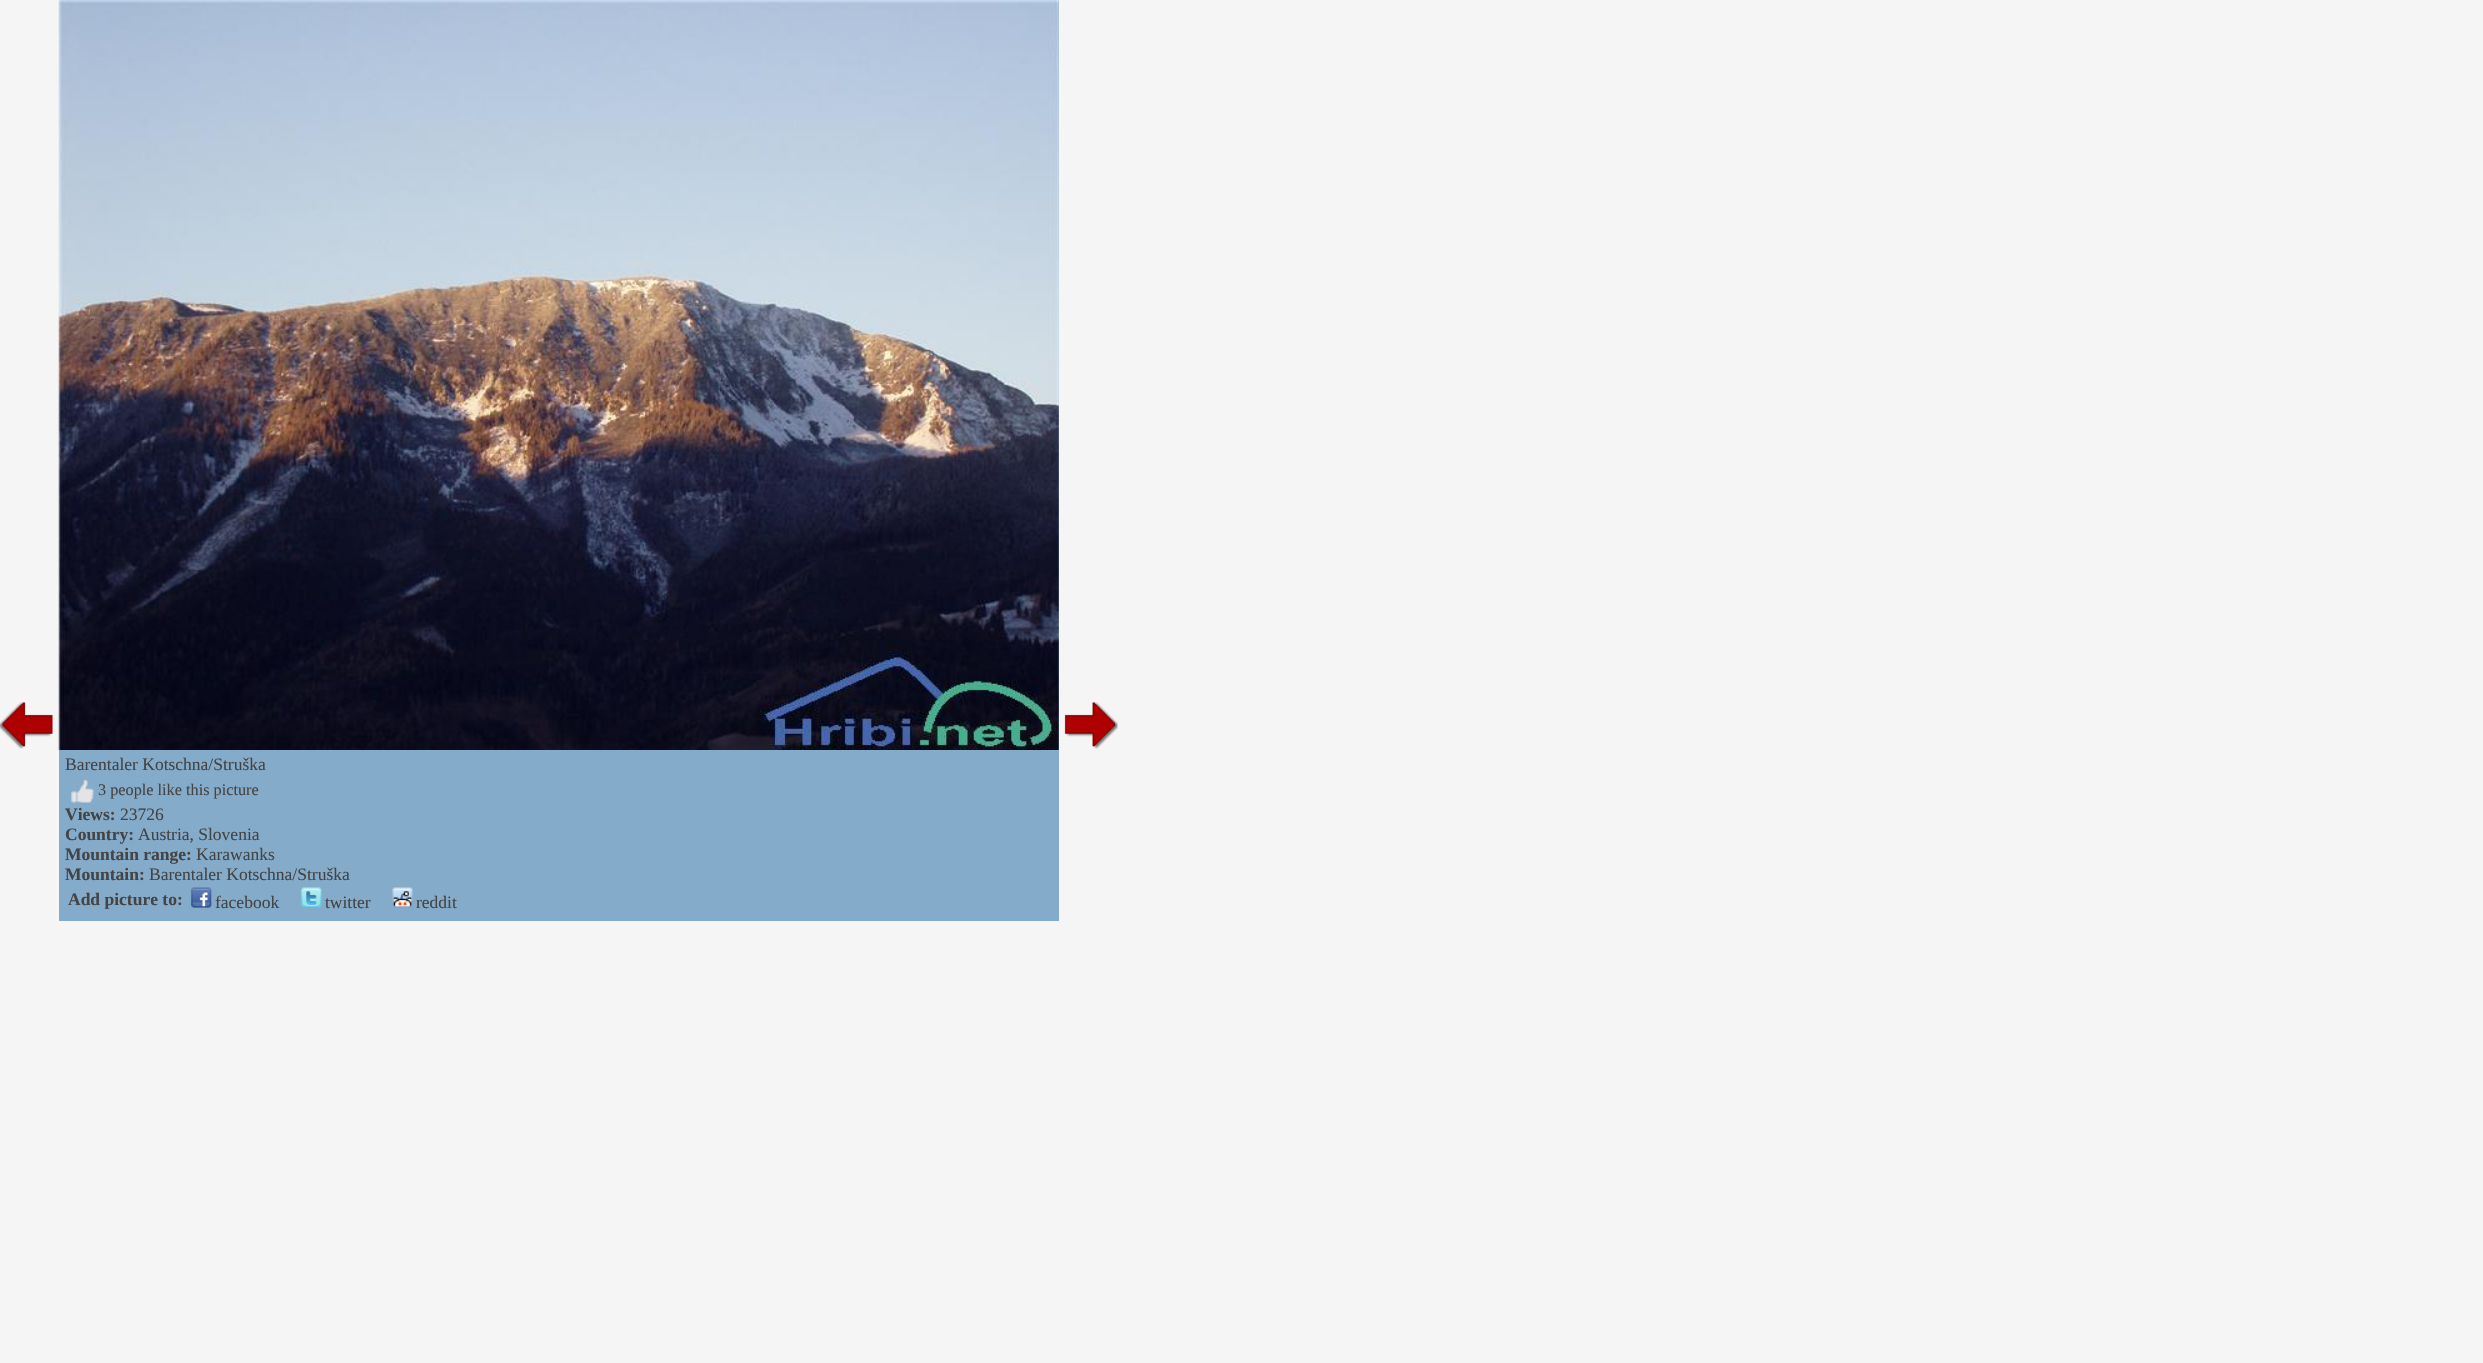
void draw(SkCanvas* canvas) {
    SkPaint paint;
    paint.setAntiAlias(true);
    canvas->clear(0xFFF5F5F5);
    canvas->drawImageRect(SkImages::DeferredFromEncodedData(SkData::MakeFromFileName("img1.png")), SkRect::MakeXYWH(0, 702, 53, 47), SkSamplingOptions());
    canvas->drawImageRect(SkImages::DeferredFromEncodedData(SkData::MakeFromFileName("img2.png")), SkRect::MakeXYWH(1064, 702, 54, 47), SkSamplingOptions());
    paint.setColor(0xFF85ABCA);
    canvas->drawRect(SkRect::MakeXYWH(59, 0, 1000, 921), paint);
    canvas->drawImageRect(SkImages::DeferredFromEncodedData(SkData::MakeFromFileName("img3.png")), SkRect::MakeXYWH(58, 0, 1001, 750), SkSamplingOptions());
    SkFont font1(fontMgr->matchFamilyStyle("Liberation Serif", SkFontStyle::Normal()), 17.5f);
    font1.setSubpixel(true);
    paint.setColor(0xFF444444);
    canvas->drawString("Barentaler Kotschna/Struška", 65, 770, font1, paint);
    canvas->drawImageRect(SkImages::DeferredFromEncodedData(SkData::MakeFromFileName("img4.png")), SkRect::MakeXYWH(71, 780, 23, 23), SkSamplingOptions());
    SkFont font2(fontMgr->matchFamilyStyle("Liberation Serif", SkFontStyle::Normal()), 16.25f);
    font2.setSubpixel(true);
    canvas->drawString("3 people like this picture", 98, 795, font2, paint);
    SkFont font3(fontMgr->matchFamilyStyle("Liberation Serif", SkFontStyle::Bold()), 17.5f);
    font3.setSubpixel(true);
    canvas->drawString("Views:", 65, 820, font3, paint);
    canvas->drawString("23726", 120, 820, font1, paint);
    canvas->drawString("Country:", 65, 840, font3, paint);
    canvas->drawString("Austria, Slovenia", 138, 840, font1, paint);
    canvas->drawString("Mountain range:", 65, 860, font3, paint);
    canvas->drawString("Karawanks", 196, 860, font1, paint);
    canvas->drawString("Mountain:", 65, 880, font3, paint);
    canvas->drawString("Barentaler Kotschna/Struška", 149, 880, font1, paint);
    canvas->drawString("Add picture to:", 68, 905, font3, paint);
    canvas->drawImageRect(SkImages::DeferredFromEncodedData(SkData::MakeFromFileName("img5.png")), SkRect::MakeXYWH(191, 887, 21, 21), SkSamplingOptions());
    canvas->drawString("facebook", 215, 908, font1, paint);
    canvas->drawImageRect(SkImages::DeferredFromEncodedData(SkData::MakeFromFileName("img6.png")), SkRect::MakeXYWH(301, 887, 21, 21), SkSamplingOptions());
    canvas->drawString("twitter", 325, 908, font1, paint);
    canvas->drawImageRect(SkImages::DeferredFromEncodedData(SkData::MakeFromFileName("img7.png")), SkRect::MakeXYWH(392, 887, 21, 21), SkSamplingOptions());
    canvas->drawString("reddit", 416, 908, font1, paint);
}
